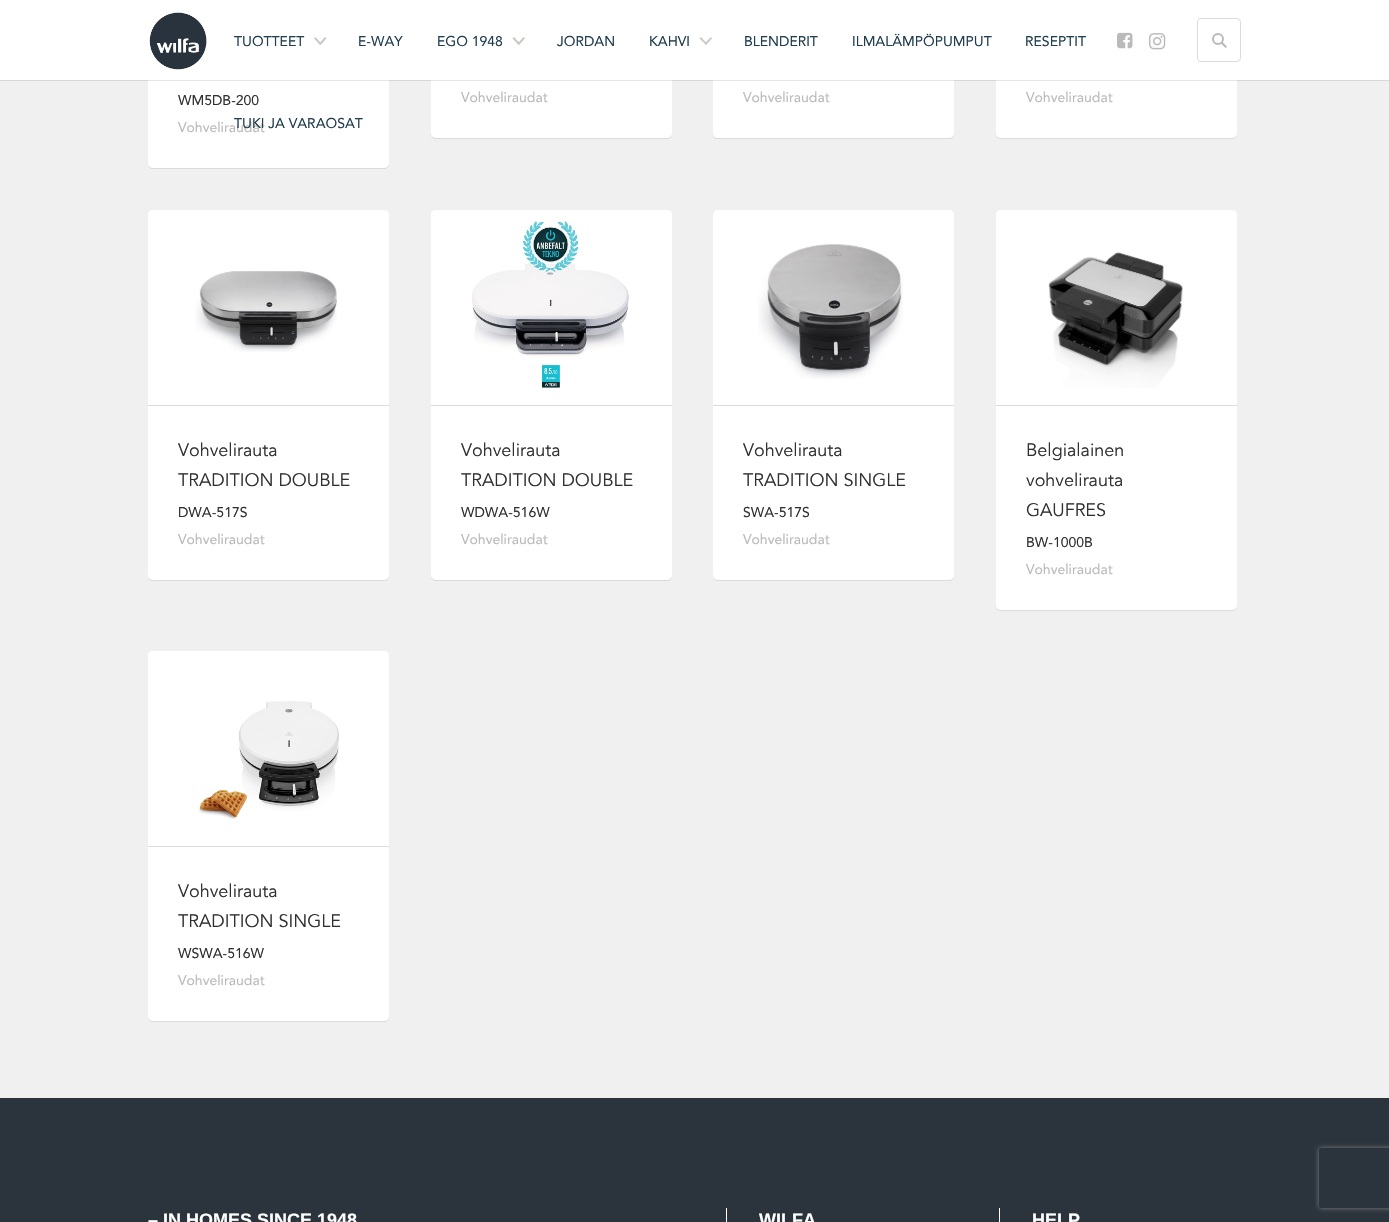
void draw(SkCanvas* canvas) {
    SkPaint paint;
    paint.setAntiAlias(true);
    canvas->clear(0xFFF0F0F0);
    paint.setColor(0xFFD8D8D8);
    canvas->drawRect(SkRect::MakeXYWH(0, 80, 1389, 1), paint);
    paint.setColor(0xFFDBDBDB);
    canvas->drawPath(SkPathBuilder().moveTo(148, 163).lineTo(148, 164).cubicTo(148, 167, 150, 169, 153, 169).lineTo(384, 169).cubicTo(387, 169, 389, 167, 389, 164).lineTo(389, 163).cubicTo(389, 166, 387, 168, 384, 168).lineTo(153, 168).cubicTo(150, 168, 148, 166, 148, 163).close().detach(), paint);
    paint.setColor(0xFFFFFFFF);
    canvas->drawRoundRect(SkRect::MakeXYWH(148, -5, 241, 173), 5, 5, paint);
    paint.setColor(0xFFDBDBDB);
    canvas->drawPath(SkPathBuilder().moveTo(431, 133).lineTo(431, 134).cubicTo(431, 137, 433, 139, 436, 139).lineTo(667, 139).cubicTo(670, 139, 672, 137, 672, 134).lineTo(672, 133).cubicTo(672, 136, 670, 138, 667, 138).lineTo(436, 138).cubicTo(433, 138, 431, 136, 431, 133).close().detach(), paint);
    paint.setColor(0xFFFFFFFF);
    canvas->drawRoundRect(SkRect::MakeXYWH(431, -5, 241, 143), 5, 5, paint);
    paint.setColor(0xFFDBDBDB);
    canvas->drawPath(SkPathBuilder().moveTo(713, 133).lineTo(713, 134).cubicTo(713, 137, 715, 139, 718, 139).lineTo(949, 139).cubicTo(952, 139, 954, 137, 954, 134).lineTo(954, 133).cubicTo(954, 136, 952, 138, 949, 138).lineTo(718, 138).cubicTo(715, 138, 713, 136, 713, 133).close().detach(), paint);
    paint.setColor(0xFFFFFFFF);
    canvas->drawRoundRect(SkRect::MakeXYWH(713, -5, 241, 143), 5, 5, paint);
    paint.setColor(0xFFDBDBDB);
    canvas->drawPath(SkPathBuilder().moveTo(996, 133).lineTo(996, 134).cubicTo(996, 137, 998, 139, 1001, 139).lineTo(1232, 139).cubicTo(1235, 139, 1237, 137, 1237, 134).lineTo(1237, 133).cubicTo(1237, 136, 1235, 138, 1232, 138).lineTo(1001, 138).cubicTo(998, 138, 996, 136, 996, 133).close().detach(), paint);
    paint.setColor(0xFFFFFFFF);
    canvas->drawRoundRect(SkRect::MakeXYWH(996, -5, 241, 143), 5, 5, paint);
    canvas->drawRect(SkRect::MakeXYWH(0, 0, 1389, 80), paint);
    canvas->drawImageRect(SkImages::DeferredFromEncodedData(SkData::MakeFromFileName("img1.png")), SkRect::MakeXYWH(149, 12, 58, 58), SkSamplingOptions());
    SkFont font1(fontMgr->matchFamilyStyle("Avenir", SkFontStyle::Normal()), 14);
    font1.setSubpixel(true);
    paint.setColor(0xFF213E50);
    canvas->drawString("TUOTTEET", 234, 46, font1, paint);
    paint.setColor(0xFFC9CBC4);
    canvas->drawPath(SkPathBuilder().moveTo(315.5f, 37).lineTo(321.5f, 43.5f).lineTo(320, 45).lineTo(314, 38.5f).close().detach(), paint);
    canvas->drawPath(SkPathBuilder().moveTo(319, 43.5f).lineTo(325, 37).lineTo(326.5f, 38.5f).lineTo(320.5f, 45).close().detach(), paint);
    paint.setColor(0xFF213E50);
    canvas->drawString("E-WAY", 358, 46, font1, paint);
    canvas->drawString("EGO 1948", 437, 46, font1, paint);
    paint.setColor(0xFFC9CBC4);
    canvas->drawPath(SkPathBuilder().moveTo(514, 37).lineTo(520, 43.5f).lineTo(518.5f, 45).lineTo(512.5f, 38.5f).close().detach(), paint);
    canvas->drawPath(SkPathBuilder().moveTo(517.5f, 43.5f).lineTo(523.5f, 37).lineTo(525, 38.5f).lineTo(519, 45).close().detach(), paint);
    paint.setColor(0xFF213E50);
    canvas->drawString("JORDAN", 557, 46, font1, paint);
    canvas->drawString("KAHVI", 649, 46, font1, paint);
    paint.setColor(0xFFC9CBC4);
    canvas->drawPath(SkPathBuilder().moveTo(701, 37).lineTo(707, 43.5f).lineTo(706, 45).lineTo(699.5f, 38.5f).close().detach(), paint);
    canvas->drawPath(SkPathBuilder().moveTo(704.5f, 43.5f).lineTo(711, 37).lineTo(712, 38.5f).lineTo(706, 45).close().detach(), paint);
    paint.setColor(0xFF213E50);
    canvas->drawString("BLENDERIT", 744, 46, font1, paint);
    canvas->drawString("ILMALÄMPÖPUMPUT", 852, 46, font1, paint);
    canvas->drawString("RESEPTIT", 1025, 46, font1, paint);
    paint.setColor(0xFFBABABA);
    canvas->drawString("Vohveliraudat", 178, 132, font1, paint);
    paint.setColor(0xFF213E50);
    canvas->drawString("TUKI JA VARAOSAT", 234, 128, font1, paint);
    canvas->drawImageRect(SkImages::DeferredFromEncodedData(SkData::MakeFromFileName("img2.png")), SkRect::MakeXYWH(1117, 32, 16, 17), SkSamplingOptions());
    canvas->drawImageRect(SkImages::DeferredFromEncodedData(SkData::MakeFromFileName("img3.png")), SkRect::MakeXYWH(1149, 33, 17, 17), SkSamplingOptions());
    paint.setStyle(SkPaint::kStroke_Style);
    paint.setStrokeWidth(1);
    paint.setColor(0xFFDBDBDB);
    canvas->drawRoundRect(SkRect::MakeXYWH(1197.5f, 18.5f, 43, 43), 3.5f, 3.5f, paint);
    paint.setStrokeWidth(2);
    paint.setColor(0xFFBABABA);
    canvas->drawCircle(1218, 39, 5, paint);
    paint.setStyle(SkPaint::kFill_Style);
    canvas->drawPath(SkPathBuilder().moveTo(1222.5f, 42).lineTo(1227, 46.5f).lineTo(1225.5f, 48).lineTo(1221, 43.5f).close().detach(), paint);
    paint.setColor(0xFFE6E6E6);
    canvas->drawRect(SkRect::MakeXYWH(148, 80, 241, 1), paint);
    paint.setColor(0xFF303030);
    canvas->drawString("WM5DB-200", 178, 105, font1, paint);
    paint.setColor(0xFFE6E6E6);
    canvas->drawRect(SkRect::MakeXYWH(431, 80, 241, 1), paint);
    paint.setColor(0xFFBABABA);
    canvas->drawString("Vohveliraudat", 461, 102, font1, paint);
    paint.setColor(0xFFE6E6E6);
    canvas->drawRect(SkRect::MakeXYWH(713, 80, 241, 1), paint);
    paint.setColor(0xFFBABABA);
    canvas->drawString("Vohveliraudat", 743, 102, font1, paint);
    paint.setColor(0xFFE6E6E6);
    canvas->drawRect(SkRect::MakeXYWH(996, 80, 241, 1), paint);
    paint.setColor(0xFFBABABA);
    canvas->drawString("Vohveliraudat", 1026, 102, font1, paint);
    paint.setColor(0xFFDBDBDB);
    canvas->drawPath(SkPathBuilder().moveTo(148, 575).lineTo(148, 576).cubicTo(148, 579, 150, 581, 153, 581).lineTo(384, 581).cubicTo(387, 581, 389, 579, 389, 576).lineTo(389, 575).cubicTo(389, 578, 387, 580, 384, 580).lineTo(153, 580).cubicTo(150, 580, 148, 578, 148, 575).close().detach(), paint);
    paint.setColor(0xFFFFFFFF);
    canvas->drawRoundRect(SkRect::MakeXYWH(148, 210, 241, 370), 5, 5, paint);
    canvas->drawPath(SkPathBuilder().moveTo(153, 210).lineTo(384, 210).cubicTo(387, 210, 389, 212, 389, 215).lineTo(389, 405).lineTo(148, 405).lineTo(148, 215).cubicTo(148, 212, 150, 210, 153, 210).close().detach(), paint);
    canvas->drawImageRect(SkImages::DeferredFromEncodedData(SkData::MakeFromFileName("img4.png")), SkRect::MakeXYWH(195, 271, 142, 81), SkSamplingOptions());
    paint.setColor(0xFFDBDBDB);
    canvas->drawRect(SkRect::MakeXYWH(148, 405, 241, 1), paint);
    SkFont font2(fontMgr->matchFamilyStyle("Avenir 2", SkFontStyle::Normal()), 18);
    font2.setSubpixel(true);
    paint.setColor(0xFF303030);
    canvas->drawString("Vohvelirauta", 178, 456, font2, paint);
    canvas->drawString("TRADITION DOUBLE", 178, 486, font2, paint);
    canvas->drawString("DWA-517S", 178, 517, font1, paint);
    paint.setColor(0xFFBABABA);
    canvas->drawString("Vohveliraudat", 178, 544, font1, paint);
    paint.setColor(0xFFDBDBDB);
    canvas->drawPath(SkPathBuilder().moveTo(431, 575).lineTo(431, 576).cubicTo(431, 579, 433, 581, 436, 581).lineTo(667, 581).cubicTo(670, 581, 672, 579, 672, 576).lineTo(672, 575).cubicTo(672, 578, 670, 580, 667, 580).lineTo(436, 580).cubicTo(433, 580, 431, 578, 431, 575).close().detach(), paint);
    paint.setColor(0xFFFFFFFF);
    canvas->drawRoundRect(SkRect::MakeXYWH(431, 210, 241, 370), 5, 5, paint);
    canvas->drawPath(SkPathBuilder().moveTo(436, 210).lineTo(667, 210).cubicTo(670, 210, 672, 212, 672, 215).lineTo(672, 405).lineTo(431, 405).lineTo(431, 215).cubicTo(431, 212, 433, 210, 436, 210).close().detach(), paint);
    canvas->drawImageRect(SkImages::DeferredFromEncodedData(SkData::MakeFromFileName("img5.png")), SkRect::MakeXYWH(472, 221, 157, 167), SkSamplingOptions());
    paint.setColor(0xFFDBDBDB);
    canvas->drawRect(SkRect::MakeXYWH(431, 405, 241, 1), paint);
    paint.setColor(0xFF303030);
    canvas->drawString("Vohvelirauta", 461, 456, font2, paint);
    canvas->drawString("TRADITION DOUBLE", 461, 486, font2, paint);
    canvas->drawString("WDWA-516W", 461, 517, font1, paint);
    paint.setColor(0xFFBABABA);
    canvas->drawString("Vohveliraudat", 461, 544, font1, paint);
    paint.setColor(0xFFDBDBDB);
    canvas->drawPath(SkPathBuilder().moveTo(713, 575).lineTo(713, 576).cubicTo(713, 579, 715, 581, 718, 581).lineTo(949, 581).cubicTo(952, 581, 954, 579, 954, 576).lineTo(954, 575).cubicTo(954, 578, 952, 580, 949, 580).lineTo(718, 580).cubicTo(715, 580, 713, 578, 713, 575).close().detach(), paint);
    paint.setColor(0xFFFFFFFF);
    canvas->drawRoundRect(SkRect::MakeXYWH(713, 210, 241, 370), 5, 5, paint);
    canvas->drawPath(SkPathBuilder().moveTo(718, 210).lineTo(949, 210).cubicTo(952, 210, 954, 212, 954, 215).lineTo(954, 405).lineTo(713, 405).lineTo(713, 215).cubicTo(713, 212, 715, 210, 718, 210).close().detach(), paint);
    canvas->drawImageRect(SkImages::DeferredFromEncodedData(SkData::MakeFromFileName("img6.png")), SkRect::MakeXYWH(758, 244, 145, 135), SkSamplingOptions());
    paint.setColor(0xFFDBDBDB);
    canvas->drawRect(SkRect::MakeXYWH(713, 405, 241, 1), paint);
    paint.setColor(0xFF303030);
    canvas->drawString("Vohvelirauta", 743, 456, font2, paint);
    canvas->drawString("TRADITION SINGLE", 743, 486, font2, paint);
    canvas->drawString("SWA-517S", 743, 517, font1, paint);
    paint.setColor(0xFFBABABA);
    canvas->drawString("Vohveliraudat", 743, 544, font1, paint);
    paint.setColor(0xFFDBDBDB);
    canvas->drawPath(SkPathBuilder().moveTo(996, 605).lineTo(996, 606).cubicTo(996, 609, 998, 611, 1001, 611).lineTo(1232, 611).cubicTo(1235, 611, 1237, 609, 1237, 606).lineTo(1237, 605).cubicTo(1237, 608, 1235, 610, 1232, 610).lineTo(1001, 610).cubicTo(998, 610, 996, 608, 996, 605).close().detach(), paint);
    paint.setColor(0xFFFFFFFF);
    canvas->drawRoundRect(SkRect::MakeXYWH(996, 210, 241, 400), 5, 5, paint);
    canvas->drawPath(SkPathBuilder().moveTo(1001, 210).lineTo(1232, 210).cubicTo(1235, 210, 1237, 212, 1237, 215).lineTo(1237, 405).lineTo(996, 405).lineTo(996, 215).cubicTo(996, 212, 998, 210, 1001, 210).close().detach(), paint);
    canvas->drawImageRect(SkImages::DeferredFromEncodedData(SkData::MakeFromFileName("img7.png")), SkRect::MakeXYWH(1048, 252, 135, 136), SkSamplingOptions());
    paint.setColor(0xFFDBDBDB);
    canvas->drawRect(SkRect::MakeXYWH(996, 405, 241, 1), paint);
    paint.setColor(0xFF303030);
    canvas->drawString("Belgialainen", 1026, 456, font2, paint);
    canvas->drawString("vohvelirauta", 1026, 486, font2, paint);
    canvas->drawString("GAUFRES", 1026, 516, font2, paint);
    canvas->drawString("BW-1000B", 1026, 547, font1, paint);
    paint.setColor(0xFFBABABA);
    canvas->drawString("Vohveliraudat", 1026, 574, font1, paint);
    paint.setColor(0xFFDBDBDB);
    canvas->drawPath(SkPathBuilder().moveTo(148, 1016).lineTo(148, 1017).cubicTo(148, 1020, 150, 1022, 153, 1022).lineTo(384, 1022).cubicTo(387, 1022, 389, 1020, 389, 1017).lineTo(389, 1016).cubicTo(389, 1019, 387, 1021, 384, 1021).lineTo(153, 1021).cubicTo(150, 1021, 148, 1019, 148, 1016).close().detach(), paint);
    paint.setColor(0xFFFFFFFF);
    canvas->drawRoundRect(SkRect::MakeXYWH(148, 651, 241, 370), 5, 5, paint);
    canvas->drawPath(SkPathBuilder().moveTo(153, 651).lineTo(384, 651).cubicTo(387, 651, 389, 653, 389, 656).lineTo(389, 846).lineTo(148, 846).lineTo(148, 656).cubicTo(148, 653, 150, 651, 153, 651).close().detach(), paint);
    canvas->drawImageRect(SkImages::DeferredFromEncodedData(SkData::MakeFromFileName("img8.png")), SkRect::MakeXYWH(198, 701, 141, 119), SkSamplingOptions());
    paint.setColor(0xFFDBDBDB);
    canvas->drawRect(SkRect::MakeXYWH(148, 846, 241, 1), paint);
    paint.setColor(0xFF303030);
    canvas->drawString("Vohvelirauta", 178, 897, font2, paint);
    canvas->drawString("TRADITION SINGLE", 178, 927, font2, paint);
    canvas->drawString("WSWA-516W", 178, 958, font1, paint);
    paint.setColor(0xFFBABABA);
    canvas->drawString("Vohveliraudat", 178, 985, font1, paint);
    paint.setColor(0xFF2B333C);
    canvas->drawRect(SkRect::MakeXYWH(0, 1098, 1389, 124), paint);
    SkFont font3(fontMgr->matchFamilyStyle("Liberation Sans", SkFontStyle::Bold()), 18);
    font3.setSubpixel(true);
    paint.setColor(0xFFFFFFFF);
    canvas->drawString("– IN HOMES SINCE 1948", 148, 1226, font3, paint);
    canvas->drawRect(SkRect::MakeXYWH(726, 1208, 1, 14), paint);
    canvas->drawString("WILFA", 759, 1226, font3, paint);
    canvas->drawRect(SkRect::MakeXYWH(999, 1208, 1, 14), paint);
    canvas->drawString("HELP", 1032, 1226, font3, paint);
    canvas->save();
    canvas->clipPath(SkPathBuilder(SkPathFillType::kEvenOdd).moveTo(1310, 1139).lineTo(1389, 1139).lineTo(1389, 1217).lineTo(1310, 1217).close().moveTo(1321, 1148).lineTo(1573, 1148).cubicTo(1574, 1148, 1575, 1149, 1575, 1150).lineTo(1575, 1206).cubicTo(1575, 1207, 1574, 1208, 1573, 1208).lineTo(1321, 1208).cubicTo(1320, 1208, 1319, 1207, 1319, 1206).lineTo(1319, 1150).cubicTo(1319, 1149, 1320, 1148, 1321, 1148).close().detach(), true);
    paint.setColor(0xFF808080);
    paint.setMaskFilter(SkMaskFilter::MakeBlur(kNormal_SkBlurStyle, 2.5f));
    canvas->drawRoundRect(SkRect::MakeXYWH(1319, 1148, 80, 60), 2, 2, paint);
    paint.setMaskFilter(nullptr);
    canvas->restore();
}
